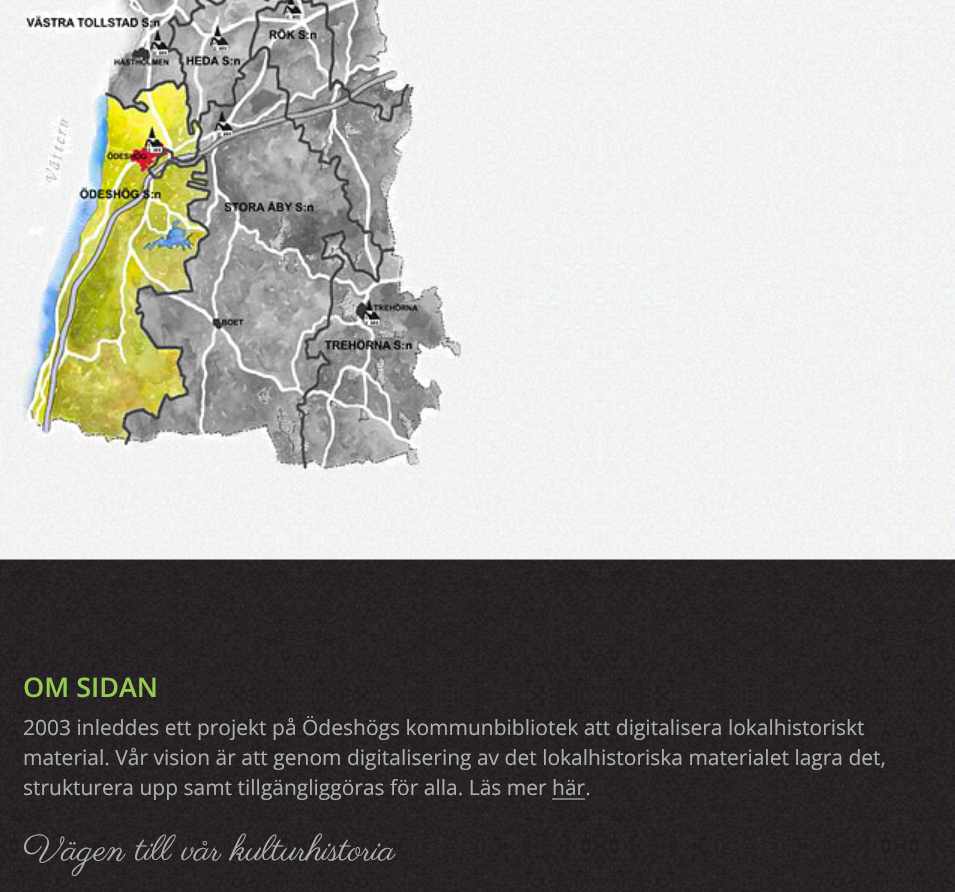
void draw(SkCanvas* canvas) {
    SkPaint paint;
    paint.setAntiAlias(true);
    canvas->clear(0xFFFFFFFF);
    canvas->drawImageRect(SkImages::DeferredFromEncodedData(SkData::MakeFromFileName("img1.png")), SkRect::MakeXYWH(0, 559, 955, 333), SkSamplingOptions());
    canvas->drawImageRect(SkImages::DeferredFromEncodedData(SkData::MakeFromFileName("img2.png")), SkRect::MakeXYWH(0, 0, 955, 560), SkSamplingOptions());
    canvas->drawImageRect(SkImages::DeferredFromEncodedData(SkData::MakeFromFileName("img3.png")), SkRect::MakeXYWH(22, 0, 439, 470), SkSamplingOptions());
    SkFont font1(fontMgr->matchFamilyStyle("Open Sans", SkFontStyle(600, SkFontStyle::kNormal_Width, SkFontStyle::kUpright_Slant)), 27);
    font1.setSubpixel(true);
    paint.setColor(0xFF95CB50);
    canvas->drawString("OM SIDAN", 23, 697, font1, paint);
    SkFont font2(fontMgr->matchFamilyStyle("Open Sans", SkFontStyle::Normal()), 21);
    font2.setSubpixel(true);
    paint.setColor(0xFFADAFAC);
    canvas->drawString("2003 inleddes ett projekt på Ödeshögs kommunbibliotek att digitalisera lokalhistoriskt", 23, 735, font2, paint);
    canvas->drawString("material. Vår vision är att genom digitalisering av det lokalhistoriska materialet lagra det,", 23, 765, font2, paint);
    canvas->drawString("strukturera upp samt tillgängliggöras för alla. Läs mer här.", 23, 795, font2, paint);
    paint.setColor(0xFF797A78);
    canvas->drawRect(SkRect::MakeXYWH(552, 798, 33, 2), paint);
    paint.setColor(0xFF1F1C1F);
    canvas->drawRect(SkRect::MakeXYWH(552, 800, 33, 2), paint);
    SkFont font3(fontMgr->matchFamilyStyle("Parisienne", SkFontStyle::Normal()), 36);
    font3.setSubpixel(true);
    paint.setColor(0xFFADAFAC);
    canvas->drawString("Vägen till vår kulturhistoria", 23, 860, font3, paint);
}
